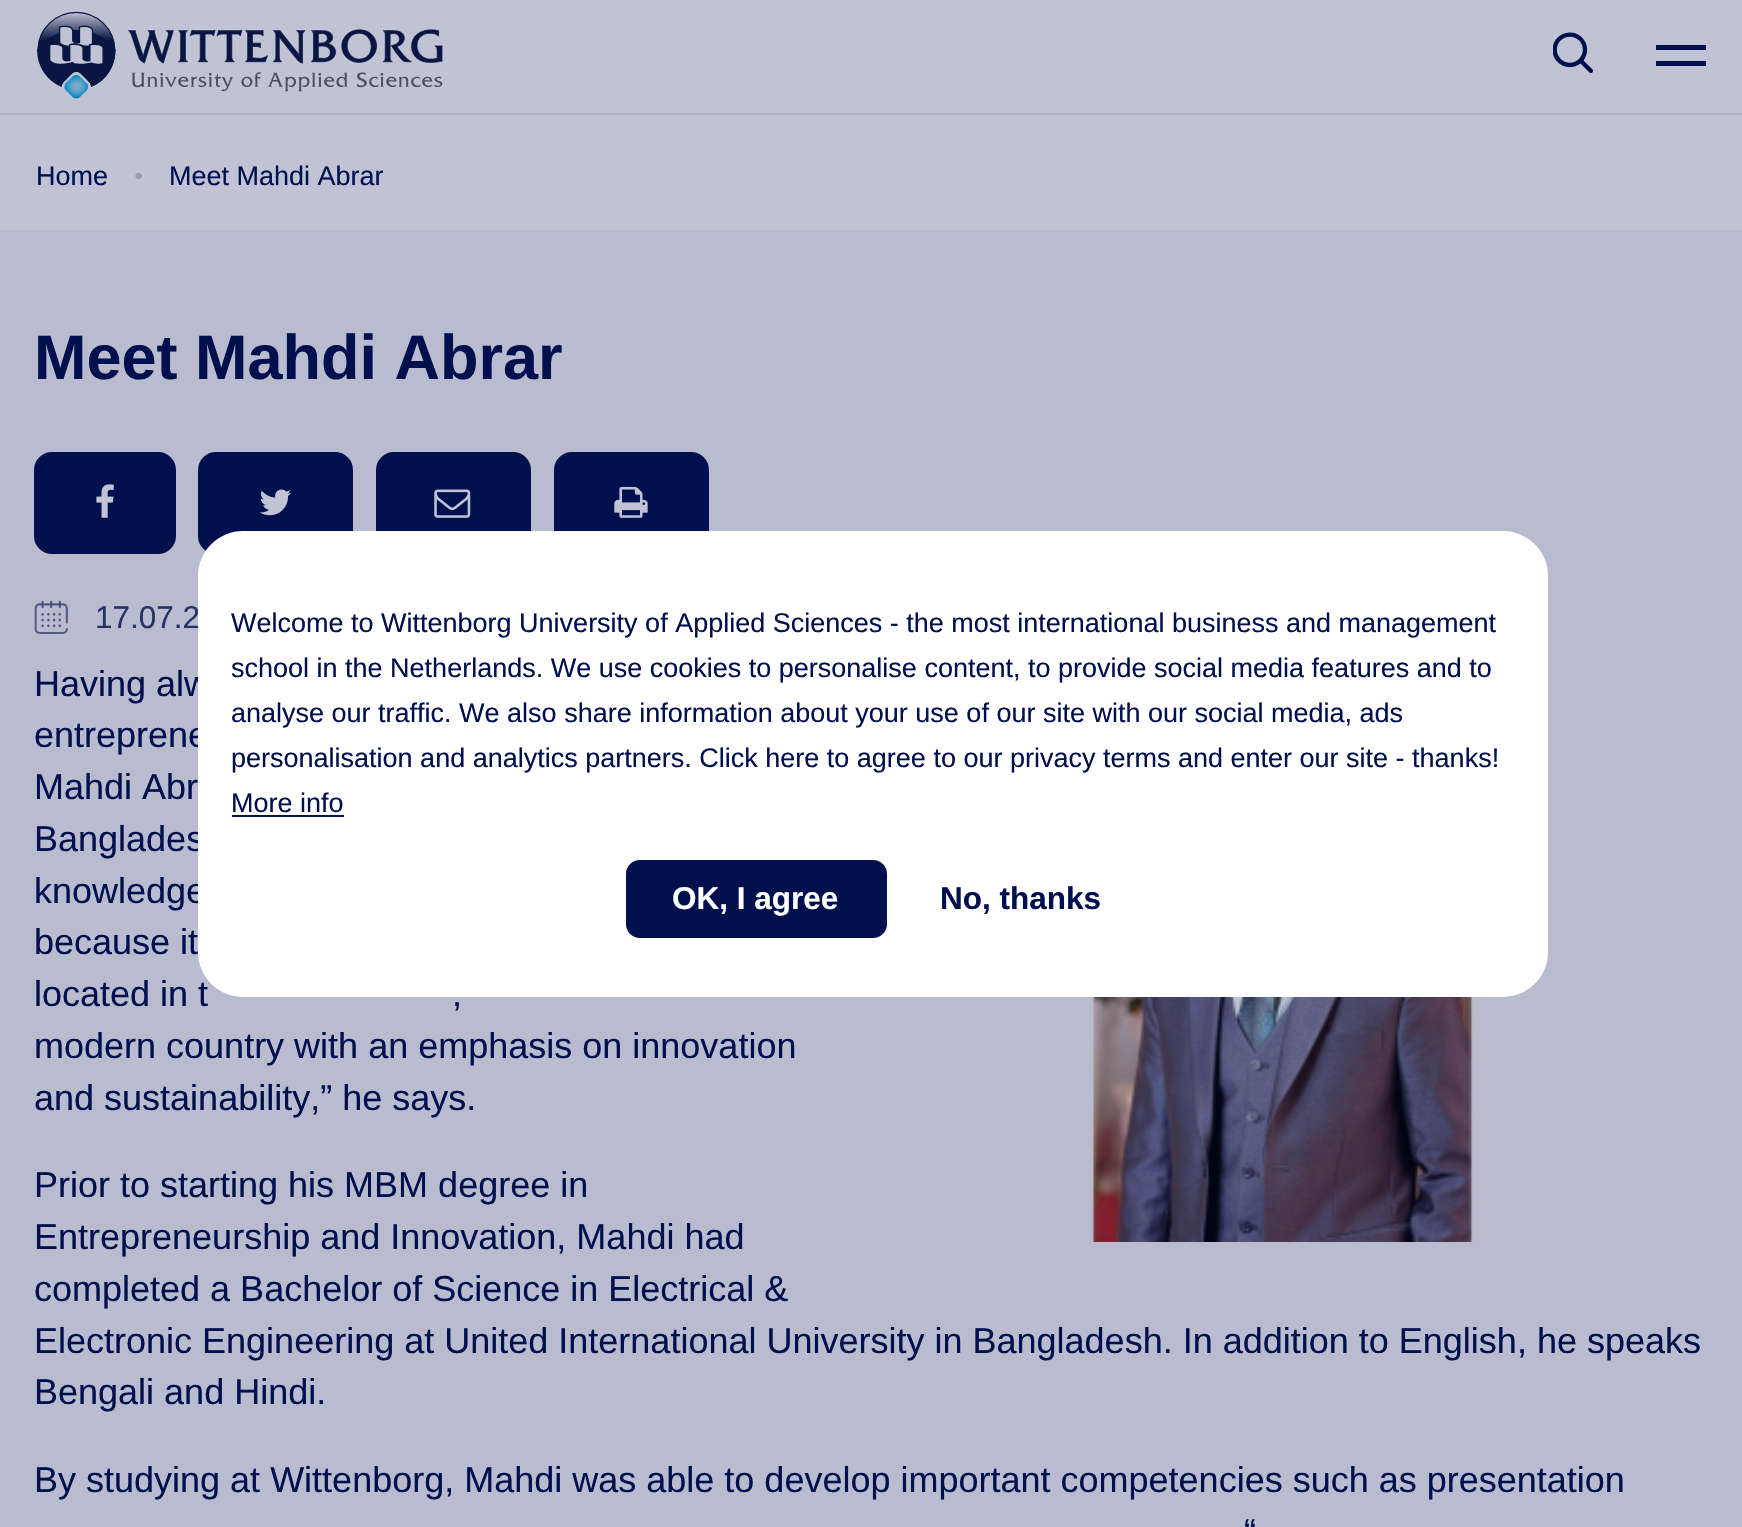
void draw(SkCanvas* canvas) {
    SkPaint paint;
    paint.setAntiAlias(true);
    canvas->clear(0xFFB8BCCE);
    paint.setColor(0xFFBFC3D3);
    canvas->drawRect(SkRect::MakeXYWH(0, 0, 1742, 113), paint);
    canvas->drawImageRect(SkImages::DeferredFromEncodedData(SkData::MakeFromFileName("img1.png")), SkRect::MakeXYWH(37, 11, 406, 88), SkSamplingOptions());
    canvas->drawImageRect(SkImages::DeferredFromEncodedData(SkData::MakeFromFileName("img2.png")), SkRect::MakeXYWH(1553, 32, 40, 41), SkSamplingOptions());
    paint.setColor(0xFF000F4E);
    canvas->drawRect(SkRect::MakeXYWH(1656, 45, 50, 5), paint);
    canvas->drawRect(SkRect::MakeXYWH(1656, 61, 50, 5), paint);
    paint.setColor(0xFFBFC3D3);
    canvas->drawRect(SkRect::MakeXYWH(0, 115, 1742, 115), paint);
    paint.setColor(0xFFAAAEC3);
    canvas->drawRect(SkRect::MakeXYWH(0, 113, 1742, 2), paint);
    SkFont font1(fontMgr->matchFamilyStyle("Liberation Sans", SkFontStyle::Normal()), 27);
    font1.setSubpixel(true);
    paint.setColor(0xFF000F4E);
    canvas->drawString("Home", 36, 185, font1, paint);
    SkFont font2(fontMgr->matchFamilyStyle("Liberation Serif", SkFontStyle::Normal()), 27);
    font2.setSubpixel(true);
    paint.setColor(0xFF939AB4);
    canvas->drawString("•", 134, 185, font2, paint);
    paint.setColor(0xFF000F4E);
    canvas->drawString("Meet Mahdi Abrar", 169, 185, font1, paint);
    SkFont font3(fontMgr->matchFamilyStyle("Liberation Sans", SkFontStyle::Bold()), 63);
    font3.setSubpixel(true);
    canvas->drawString("Meet Mahdi Abrar", 34, 379, font3, paint);
    canvas->drawRoundRect(SkRect::MakeXYWH(35, 453, 140, 100), 17, 17, paint);
    paint.setStyle(SkPaint::kStroke_Style);
    paint.setStrokeWidth(2);
    canvas->drawRoundRect(SkRect::MakeXYWH(35, 453, 140, 100), 17, 17, paint);
    canvas->drawImageRect(SkImages::DeferredFromEncodedData(SkData::MakeFromFileName("img3.png")), SkRect::MakeXYWH(96, 484, 18, 34), SkSamplingOptions());
    paint.setStyle(SkPaint::kFill_Style);
    canvas->drawRoundRect(SkRect::MakeXYWH(199, 453, 153, 100), 17, 17, paint);
    paint.setStyle(SkPaint::kStroke_Style);
    canvas->drawRoundRect(SkRect::MakeXYWH(199, 453, 153, 100), 17, 17, paint);
    canvas->drawImageRect(SkImages::DeferredFromEncodedData(SkData::MakeFromFileName("img4.png")), SkRect::MakeXYWH(259, 489, 33, 27), SkSamplingOptions());
    paint.setStyle(SkPaint::kFill_Style);
    canvas->drawRoundRect(SkRect::MakeXYWH(377, 453, 153, 100), 17, 17, paint);
    paint.setStyle(SkPaint::kStroke_Style);
    canvas->drawRoundRect(SkRect::MakeXYWH(377, 453, 153, 100), 17, 17, paint);
    canvas->drawImageRect(SkImages::DeferredFromEncodedData(SkData::MakeFromFileName("img5.png")), SkRect::MakeXYWH(434, 489, 37, 29), SkSamplingOptions());
    paint.setStyle(SkPaint::kFill_Style);
    canvas->drawRoundRect(SkRect::MakeXYWH(555, 453, 153, 100), 17, 17, paint);
    paint.setStyle(SkPaint::kStroke_Style);
    canvas->drawRoundRect(SkRect::MakeXYWH(555, 453, 153, 100), 17, 17, paint);
    canvas->drawImageRect(SkImages::DeferredFromEncodedData(SkData::MakeFromFileName("img6.png")), SkRect::MakeXYWH(614, 486, 34, 32), SkSamplingOptions());
    canvas->drawImageRect(SkImages::DeferredFromEncodedData(SkData::MakeFromFileName("img7.png")), SkRect::MakeXYWH(34, 600, 34, 34), SkSamplingOptions());
    SkFont font4(fontMgr->matchFamilyStyle("Liberation Sans", SkFontStyle::Normal()), 31.5f);
    font4.setSubpixel(true);
    paint.setStyle(SkPaint::kFill_Style);
    paint.setColor(0xFF253268);
    canvas->drawString("17.07.2", 95, 628, font4, paint);
    SkFont font5(fontMgr->matchFamilyStyle("Liberation Sans", SkFontStyle::Normal()), 36);
    font5.setSubpixel(true);
    paint.setColor(0xFF000F4E);
    canvas->drawString("Having alw", 34, 696, font5, paint);
    canvas->drawString("entreprene", 34, 747, font5, paint);
    canvas->drawString("Mahdi Abr", 34, 799, font5, paint);
    canvas->drawString("Banglades", 34, 851, font5, paint);
    canvas->drawString("knowledge", 34, 903, font5, paint);
    canvas->drawString("because it", 34, 954, font5, paint);
    canvas->drawString("located in t", 34, 1006, font5, paint);
    canvas->drawString(",", 452, 1006, font5, paint);
    canvas->drawString("modern country with an emphasis on innovation", 34, 1058, font5, paint);
    canvas->drawString("and sustainability,” he says.", 34, 1110, font5, paint);
    canvas->drawString("Prior to starting his MBM degree in", 34, 1197, font5, paint);
    canvas->drawString("Entrepreneurship and Innovation, Mahdi had", 34, 1249, font5, paint);
    canvas->drawString("completed a Bachelor of Science in Electrical &", 34, 1301, font5, paint);
    canvas->drawString("Electronic Engineering at United International University in Bangladesh. In addition to English, he speaks", 34, 1353, font5, paint);
    canvas->drawString("Bengali and Hindi.", 34, 1404, font5, paint);
    canvas->drawString("By studying at Wittenborg, Mahdi was able to develop important competencies such as presentation", 34, 1492, font5, paint);
    canvas->drawString("“", 1244, 1544, font5, paint);
    canvas->drawImageRect(SkImages::DeferredFromEncodedData(SkData::MakeFromFileName("img8.png")), SkRect::MakeXYWH(1088, 997, 388, 245), SkSamplingOptions());
    paint.setColor(0xFFFFFFFF);
    canvas->drawRoundRect(SkRect::MakeXYWH(198, 531, 1350, 466), 45, 45, paint);
    paint.setColor(0xFF000F4E);
    canvas->drawString("Welcome to Wittenborg University of Applied Sciences - the most international business and management", 231, 632, font1, paint);
    canvas->drawString("school in the Netherlands. We use cookies to personalise content, to provide social media features and to", 231, 677, font1, paint);
    canvas->drawString("analyse our traffic. We also share information about your use of our site with our social media, ads", 231, 722, font1, paint);
    canvas->drawString("personalisation and analytics partners. Click here to agree to our privacy terms and enter our site - thanks!", 231, 767, font1, paint);
    canvas->drawString("More info", 231, 812, font1, paint);
    canvas->drawRect(SkRect::MakeXYWH(232, 815, 112, 2), paint);
    canvas->drawRoundRect(SkRect::MakeXYWH(627, 861, 259, 76), 13, 13, paint);
    paint.setStyle(SkPaint::kStroke_Style);
    canvas->drawRoundRect(SkRect::MakeXYWH(627, 861, 259, 76), 13, 13, paint);
    SkFont font6(fontMgr->matchFamilyStyle("Liberation Sans", SkFontStyle::Bold()), 31.5f);
    font6.setSubpixel(true);
    paint.setStyle(SkPaint::kFill_Style);
    paint.setColor(0xFFFFFFFF);
    canvas->drawString("OK, I agree", 672, 909, font6, paint);
    paint.setColor(0xFF000F4E);
    canvas->drawString("No, thanks", 940, 909, font6, paint);
}
